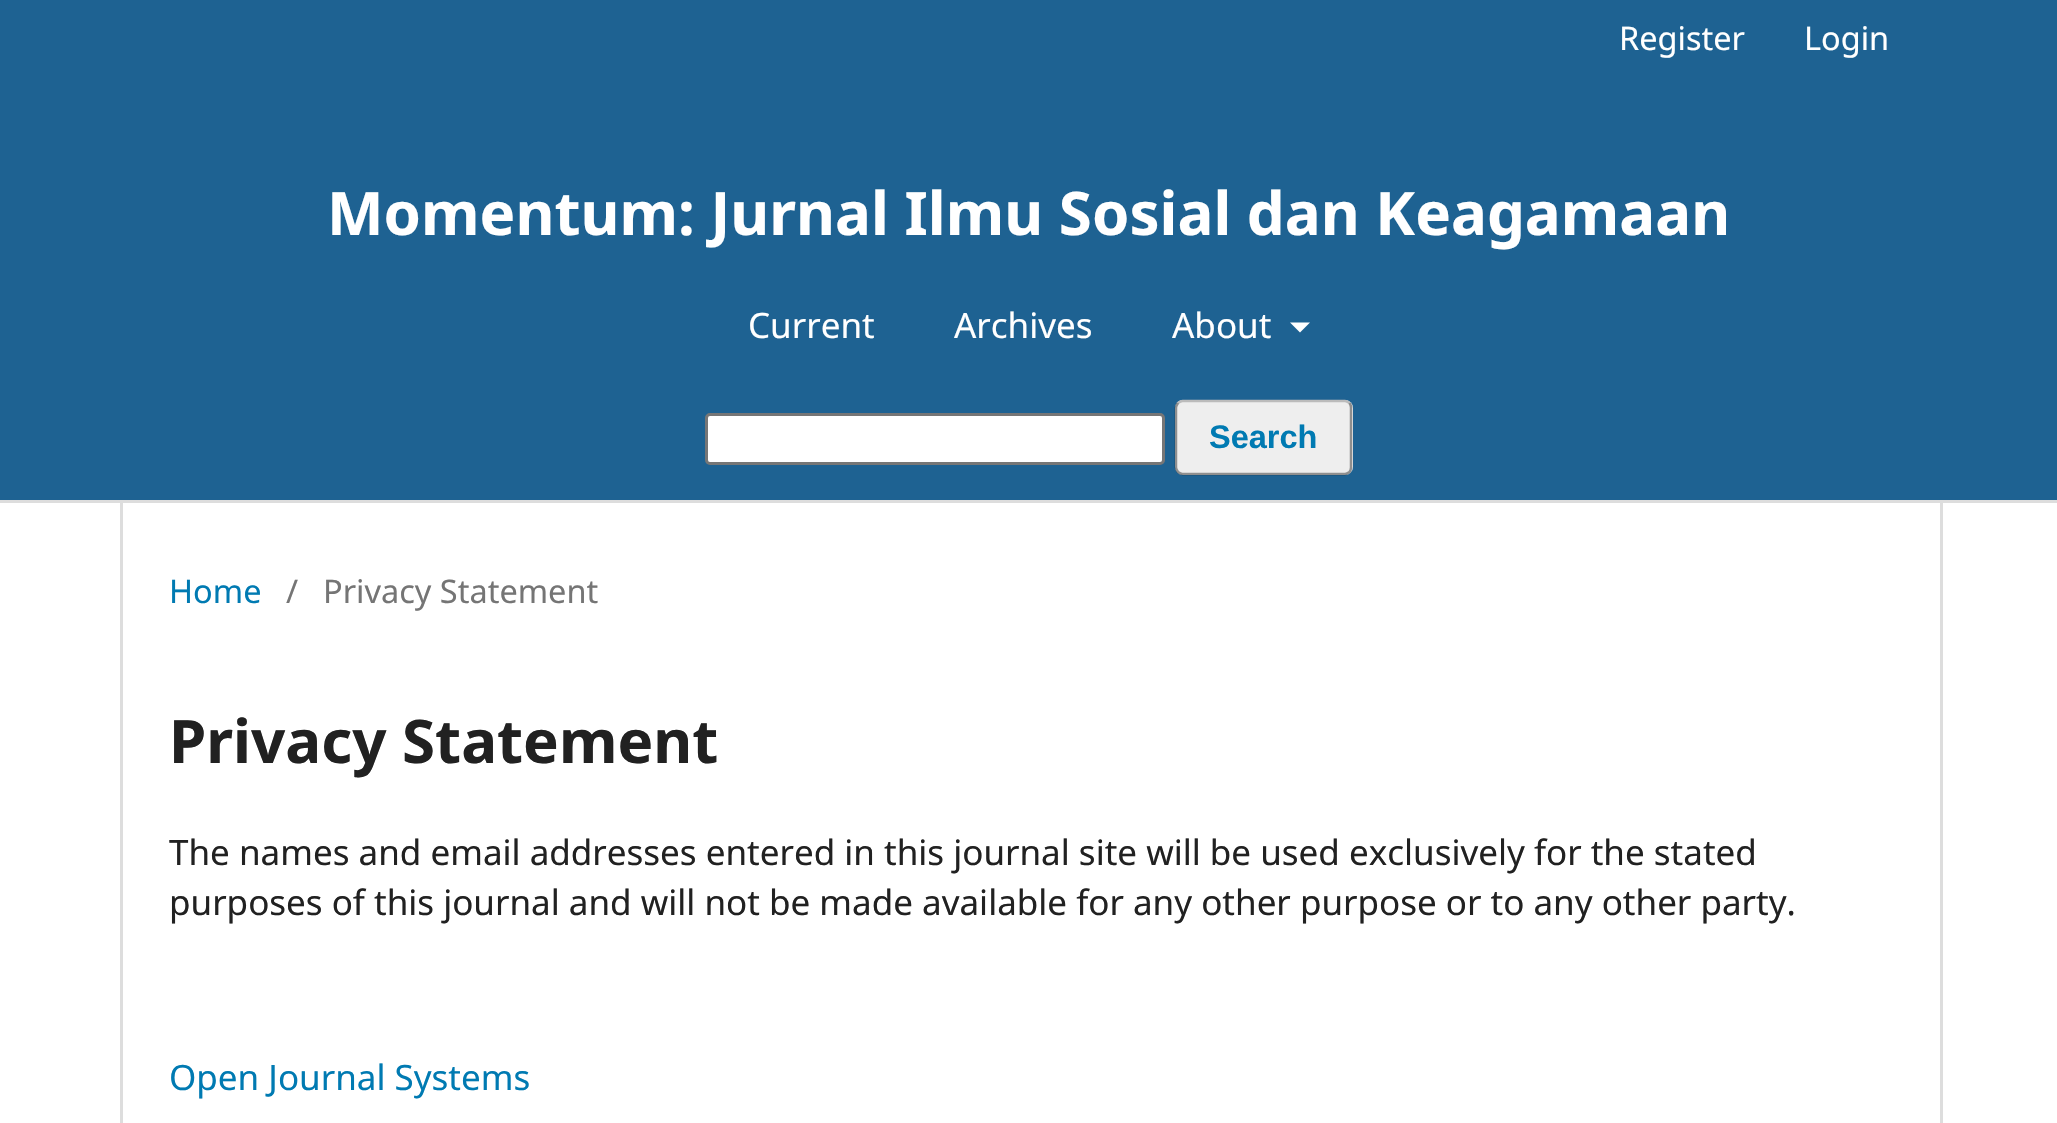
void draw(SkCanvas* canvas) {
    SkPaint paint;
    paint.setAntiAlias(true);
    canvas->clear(0xFFFFFFFF);
    paint.setColor(0xFF1E6292);
    canvas->drawRect(SkRect::MakeXYWH(0, 0, 2057, 500), paint);
    paint.setColor(0xFFDDDDDD);
    canvas->drawRect(SkRect::MakeXYWH(0, 500, 2057, 3), paint);
    SkFont font1(fontMgr->matchFamilyStyle("Noto Sans", SkFontStyle::Normal()), 32.5f);
    font1.setSubpixel(true);
    paint.setColor(0xFFFFFFFF);
    canvas->drawString("Register", 1619, 50, font1, paint);
    canvas->drawString("Login", 1804, 50, font1, paint);
    SkFont font2(fontMgr->matchFamilyStyle("Noto Sans", SkFontStyle::Bold()), 60);
    font2.setSubpixel(true);
    canvas->drawString("Momentum: Jurnal Ilmu Sosial dan Keagamaan", 327, 235, font2, paint);
    SkFont font3(fontMgr->matchFamilyStyle("Noto Sans", SkFontStyle::Normal()), 35);
    font3.setSubpixel(true);
    canvas->drawString("Current", 748, 338, font3, paint);
    canvas->drawString("Archives", 954, 338, font3, paint);
    canvas->drawString("About", 1172, 338, font3, paint);
    canvas->drawPath(SkPathBuilder().moveTo(1290, 322.5f).lineTo(1310, 322.5f).lineTo(1300, 332.5f).close().detach(), paint);
    canvas->drawRoundRect(SkRect::MakeXYWH(706.5f, 414.5f, 457, 49), 3.5f, 3.5f, paint);
    paint.setStyle(SkPaint::kStroke_Style);
    paint.setStrokeWidth(3);
    paint.setColor(0xFF767676);
    canvas->drawRoundRect(SkRect::MakeXYWH(706.5f, 414.5f, 457, 49), 3.5f, 3.5f, paint);
    paint.setStyle(SkPaint::kFill_Style);
    paint.setColor(0xFFEEEEEE);
    canvas->drawRoundRect(SkRect::MakeXYWH(1175, 400, 178, 75), 8, 8, paint);
    paint.setStyle(SkPaint::kStroke_Style);
    paint.setStrokeWidth(2.5f);
    paint.setColor(0xFFBBBBBB);
    canvas->drawPath(SkPathBuilder().moveTo(1178, 403).cubicTo(1179.5f, 402, 1181, 401, 1182.5f, 401).lineTo(1345, 401).cubicTo(1346.5f, 401, 1348, 402, 1349.5f, 403).detach(), paint);
    paint.setColor(0x66000000);
    canvas->drawPath(SkPathBuilder().moveTo(1349.5f, 403).cubicTo(1350.5f, 404.5f, 1351, 406, 1351, 407.5f).lineTo(1351, 467.5f).cubicTo(1351, 469, 1350.5f, 470.5f, 1349.5f, 472).cubicTo(1348, 473, 1346.5f, 474, 1345, 474).lineTo(1182.5f, 474).cubicTo(1181, 474, 1179.5f, 473, 1178, 472).cubicTo(1177, 470.5f, 1176, 469, 1176, 467.5f).lineTo(1176, 407.5f).cubicTo(1176, 406, 1177, 404.5f, 1178, 403).detach(), paint);
    SkFont font4(fontMgr->matchFamilyStyle("Liberation Sans", SkFontStyle::Bold()), 32.5f);
    font4.setSubpixel(true);
    paint.setStyle(SkPaint::kFill_Style);
    paint.setColor(0xFF007AB2);
    canvas->drawString("Search", 1209, 448, font4, paint);
    paint.setColor(0xFFDDDDDD);
    canvas->drawRect(SkRect::MakeXYWH(120, 503, 3, 620), paint);
    paint.setColor(0xFF007AB2);
    canvas->drawString("Home", 169, 603, font1, paint);
    paint.setColor(0xFF757575);
    canvas->drawString("/", 286, 603, font1, paint);
    canvas->drawString("Privacy Statement", 323, 603, font1, paint);
    paint.setColor(0xFF212121);
    canvas->drawString("Privacy Statement", 169, 763, font2, paint);
    canvas->drawString("The names and email addresses entered in this journal site will be used exclusively for the stated", 169, 865, font3, paint);
    canvas->drawString("purposes of this journal and will not be made available for any other purpose or to any other party.", 169, 915, font3, paint);
    paint.setColor(0xFFDDDDDD);
    canvas->drawRect(SkRect::MakeXYWH(1940, 503, 3, 620), paint);
    paint.setColor(0xFF007AB2);
    canvas->drawString("Open Journal Systems", 169, 1090, font3, paint);
}
